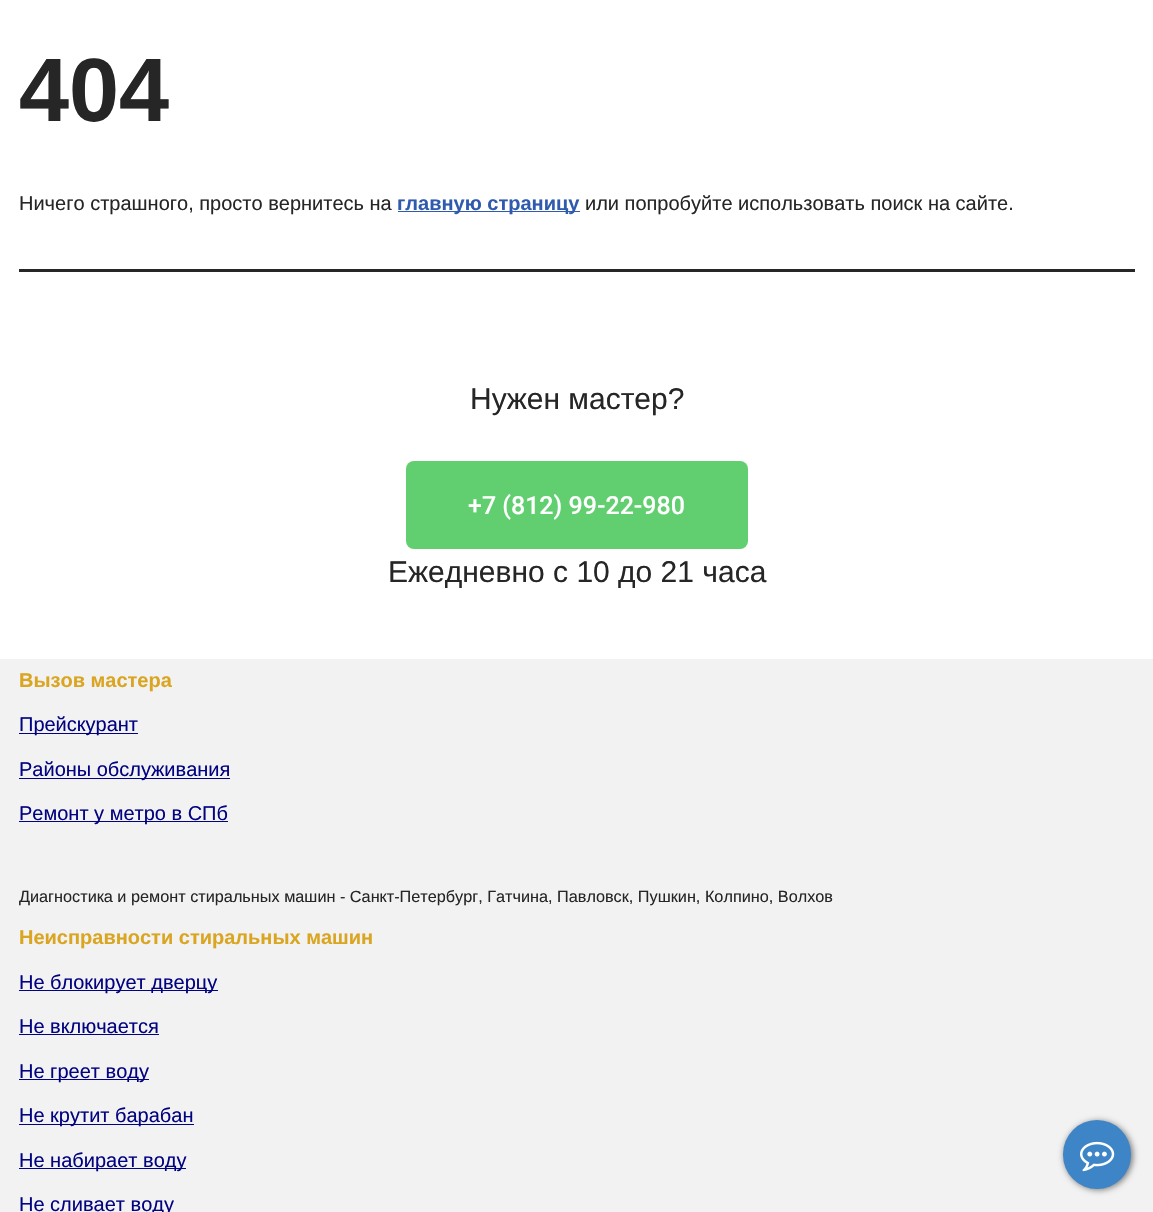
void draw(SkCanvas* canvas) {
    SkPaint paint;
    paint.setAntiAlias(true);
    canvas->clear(0xFFFFFFFF);
    SkFont font1(fontMgr->matchFamilyStyle("Liberation Sans", SkFontStyle::Bold()), 90);
    font1.setSubpixel(true);
    paint.setColor(0xFF272626);
    canvas->drawString("404", 19, 121, font1, paint);
    SkFont font2(fontMgr->matchFamilyStyle("Liberation Sans", SkFontStyle::Normal()), 20);
    font2.setSubpixel(true);
    canvas->drawString("Ничего страшного, просто вернитесь на", 19, 210, font2, paint);
    paint.setColor(0xFF2F5AAE);
    canvas->drawRect(SkRect::MakeXYWH(398, 211, 182, 1), paint);
    SkFont font3(fontMgr->matchFamilyStyle("Liberation Sans", SkFontStyle::Bold()), 20);
    font3.setSubpixel(true);
    canvas->drawString("главную страницу", 397, 210, font3, paint);
    paint.setColor(0xFF272626);
    canvas->drawString("или попробуйте использовать поиск на сайте.", 585, 210, font2, paint);
    canvas->drawRect(SkRect::MakeXYWH(19, 269, 1116, 3), paint);
    SkFont font4(fontMgr->matchFamilyStyle("Liberation Sans", SkFontStyle::Normal()), 30);
    font4.setSubpixel(true);
    canvas->drawString("Нужен мастер?", 470, 409, font4, paint);
    paint.setColor(0xFF61CE70);
    canvas->drawRoundRect(SkRect::MakeXYWH(406, 461, 342, 88), 8, 8, paint);
    SkFont font5(fontMgr->matchFamilyStyle("Roboto", SkFontStyle(500, SkFontStyle::kNormal_Width, SkFontStyle::kUpright_Slant)), 25);
    font5.setSubpixel(true);
    paint.setColor(0xFFFFFFFF);
    canvas->drawString("+7 (812) 99-22-980", 468, 514, font5, paint);
    paint.setColor(0xFF272626);
    canvas->drawString("Ежедневно с 10 до 21 часа", 388, 582, font4, paint);
    paint.setColor(0xFFF2F2F2);
    canvas->drawRect(SkRect::MakeXYWH(0, 659, 1153, 553), paint);
    paint.setColor(0xFFDAA520);
    canvas->drawString("Вызов мастера", 19, 687, font3, paint);
    paint.setColor(0xFF020381);
    canvas->drawRect(SkRect::MakeXYWH(19, 733, 119, 1), paint);
    canvas->drawString("Прейскурант", 19, 731, font2, paint);
    canvas->drawRect(SkRect::MakeXYWH(19, 778, 211, 1), paint);
    canvas->drawString("Районы обслуживания", 19, 776, font2, paint);
    canvas->drawRect(SkRect::MakeXYWH(19, 821, 209, 1), paint);
    canvas->drawString("Ремонт у метро в СПб", 19, 820, font2, paint);
    SkFont font6(fontMgr->matchFamilyStyle("Liberation Sans", SkFontStyle::Normal()), 16.25f);
    font6.setSubpixel(true);
    paint.setColor(0xFF272626);
    canvas->drawString("Диагностика и ремонт стиральных машин - Санкт-Петербург, Гатчина, Павловск, Пушкин, Колпино, Волхов", 19, 902, font6, paint);
    paint.setColor(0xFFDAA520);
    canvas->drawString("Неисправности стиральных машин", 19, 944, font3, paint);
    paint.setColor(0xFF020381);
    canvas->drawRect(SkRect::MakeXYWH(19, 990, 199, 1), paint);
    canvas->drawString("Не блокирует дверцу", 19, 989, font2, paint);
    canvas->drawString("Не включается", 19, 1033, font2, paint);
    canvas->drawRect(SkRect::MakeXYWH(19, 1034, 140, 1), paint);
    canvas->drawRect(SkRect::MakeXYWH(19, 1079, 130, 1), paint);
    canvas->drawString("Не греет воду", 19, 1078, font2, paint);
    canvas->drawRect(SkRect::MakeXYWH(19, 1124, 175, 1), paint);
    canvas->drawString("Не крутит барабан", 19, 1122, font2, paint);
    canvas->drawRect(SkRect::MakeXYWH(19, 1168, 167, 1), paint);
    canvas->drawString("Не набирает воду", 19, 1167, font2, paint);
    canvas->drawString("Не сливает воду", 19, 1211, font2, paint);
    paint.setColor(0x80000000);
    paint.setMaskFilter(SkMaskFilter::MakeBlur(kNormal_SkBlurStyle, 3));
    canvas->drawRoundRect(SkRect::MakeXYWH(1064, 1121, 69, 69), 34.5f, 34.5f, paint);
    paint.setMaskFilter(nullptr);
    paint.setColor(0xFF3D85C6);
    canvas->drawRoundRect(SkRect::MakeXYWH(1063, 1120, 68, 69), 34, 34, paint);
    canvas->drawImageRect(SkImages::DeferredFromEncodedData(SkData::MakeFromFileName("img1.png")), SkRect::MakeXYWH(1080, 1141, 35, 31), SkSamplingOptions());
}
